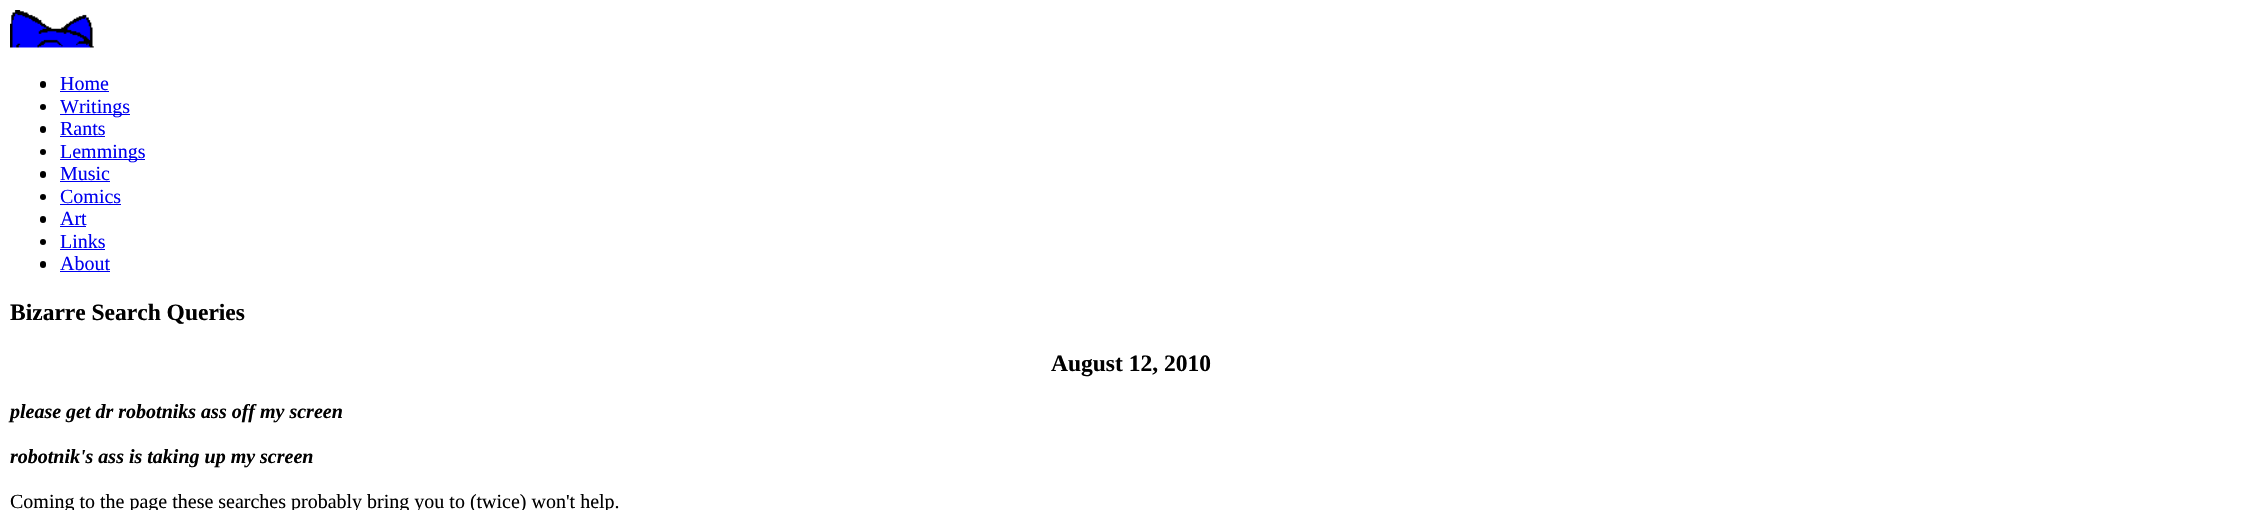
void draw(SkCanvas* canvas) {
    SkPaint paint;
    paint.setAntiAlias(true);
    canvas->clear(0xFFFFFFFF);
    canvas->drawImageRect(SkImages::DeferredFromEncodedData(SkData::MakeFromFileName("img1.png")), SkRect::MakeXYWH(10, 10, 84, 38), SkSamplingOptions());
    paint.setColor(0xFF000000);
    canvas->drawRoundRect(SkRect::MakeXYWH(40, 81, 6, 7), 3, 3, paint);
    SkFont font1(fontMgr->matchFamilyStyle("Liberation Serif", SkFontStyle::Normal()), 20);
    font1.setSubpixel(true);
    paint.setColor(0xFF0000EE);
    canvas->drawString("Home", 60, 90, font1, paint);
    canvas->drawRect(SkRect::MakeXYWH(60, 91, 49, 1), paint);
    paint.setColor(0xFF000000);
    canvas->drawCircle(43, 107, 3, paint);
    paint.setColor(0xFF0000EE);
    canvas->drawRect(SkRect::MakeXYWH(60, 114, 70, 1), paint);
    canvas->drawString("Writings", 60, 113, font1, paint);
    paint.setColor(0xFF000000);
    canvas->drawRoundRect(SkRect::MakeXYWH(40, 126, 6, 7), 3, 3, paint);
    paint.setColor(0xFF0000EE);
    canvas->drawString("Rants", 60, 135, font1, paint);
    canvas->drawRect(SkRect::MakeXYWH(60, 136, 45, 1), paint);
    paint.setColor(0xFF000000);
    canvas->drawCircle(43, 152, 3, paint);
    paint.setColor(0xFF0000EE);
    canvas->drawRect(SkRect::MakeXYWH(60, 159, 85, 1), paint);
    canvas->drawString("Lemmings", 60, 158, font1, paint);
    paint.setColor(0xFF000000);
    canvas->drawRoundRect(SkRect::MakeXYWH(40, 171, 6, 7), 3, 3, paint);
    paint.setColor(0xFF0000EE);
    canvas->drawString("Music", 60, 180, font1, paint);
    canvas->drawRect(SkRect::MakeXYWH(60, 181, 50, 1), paint);
    paint.setColor(0xFF000000);
    canvas->drawCircle(43, 197, 3, paint);
    paint.setColor(0xFF0000EE);
    canvas->drawString("Comics", 60, 203, font1, paint);
    canvas->drawRect(SkRect::MakeXYWH(60, 204, 61, 1), paint);
    paint.setColor(0xFF000000);
    canvas->drawRoundRect(SkRect::MakeXYWH(40, 216, 6, 7), 3, 3, paint);
    paint.setColor(0xFF0000EE);
    canvas->drawString("Art", 60, 225, font1, paint);
    canvas->drawRect(SkRect::MakeXYWH(60, 226, 26, 1), paint);
    paint.setColor(0xFF000000);
    canvas->drawCircle(43, 242, 3, paint);
    paint.setColor(0xFF0000EE);
    canvas->drawString("Links", 60, 248, font1, paint);
    canvas->drawRect(SkRect::MakeXYWH(60, 249, 45, 1), paint);
    paint.setColor(0xFF000000);
    canvas->drawRoundRect(SkRect::MakeXYWH(40, 261, 6, 7), 3, 3, paint);
    paint.setColor(0xFF0000EE);
    canvas->drawString("About", 60, 270, font1, paint);
    canvas->drawRect(SkRect::MakeXYWH(60, 271, 50, 1), paint);
    SkFont font2(fontMgr->matchFamilyStyle("Liberation Serif", SkFontStyle::Bold()), 23.5f);
    font2.setSubpixel(true);
    paint.setColor(0xFF000000);
    canvas->drawString("Bizarre Search Queries", 10, 320, font2, paint);
    canvas->drawString("August 12, 2010", 1051, 371, font2, paint);
    SkFont font3(fontMgr->matchFamilyStyle("Liberation Serif", SkFontStyle::BoldItalic()), 20);
    font3.setSubpixel(true);
    canvas->drawString("please get dr robotniks ass off my screen", 10, 418, font3, paint);
    canvas->drawString("robotnik's ass is taking up my screen", 10, 463, font3, paint);
    canvas->drawString("Coming to the page these searches probably bring you to (twice) won't help.", 10, 508, font1, paint);
}
